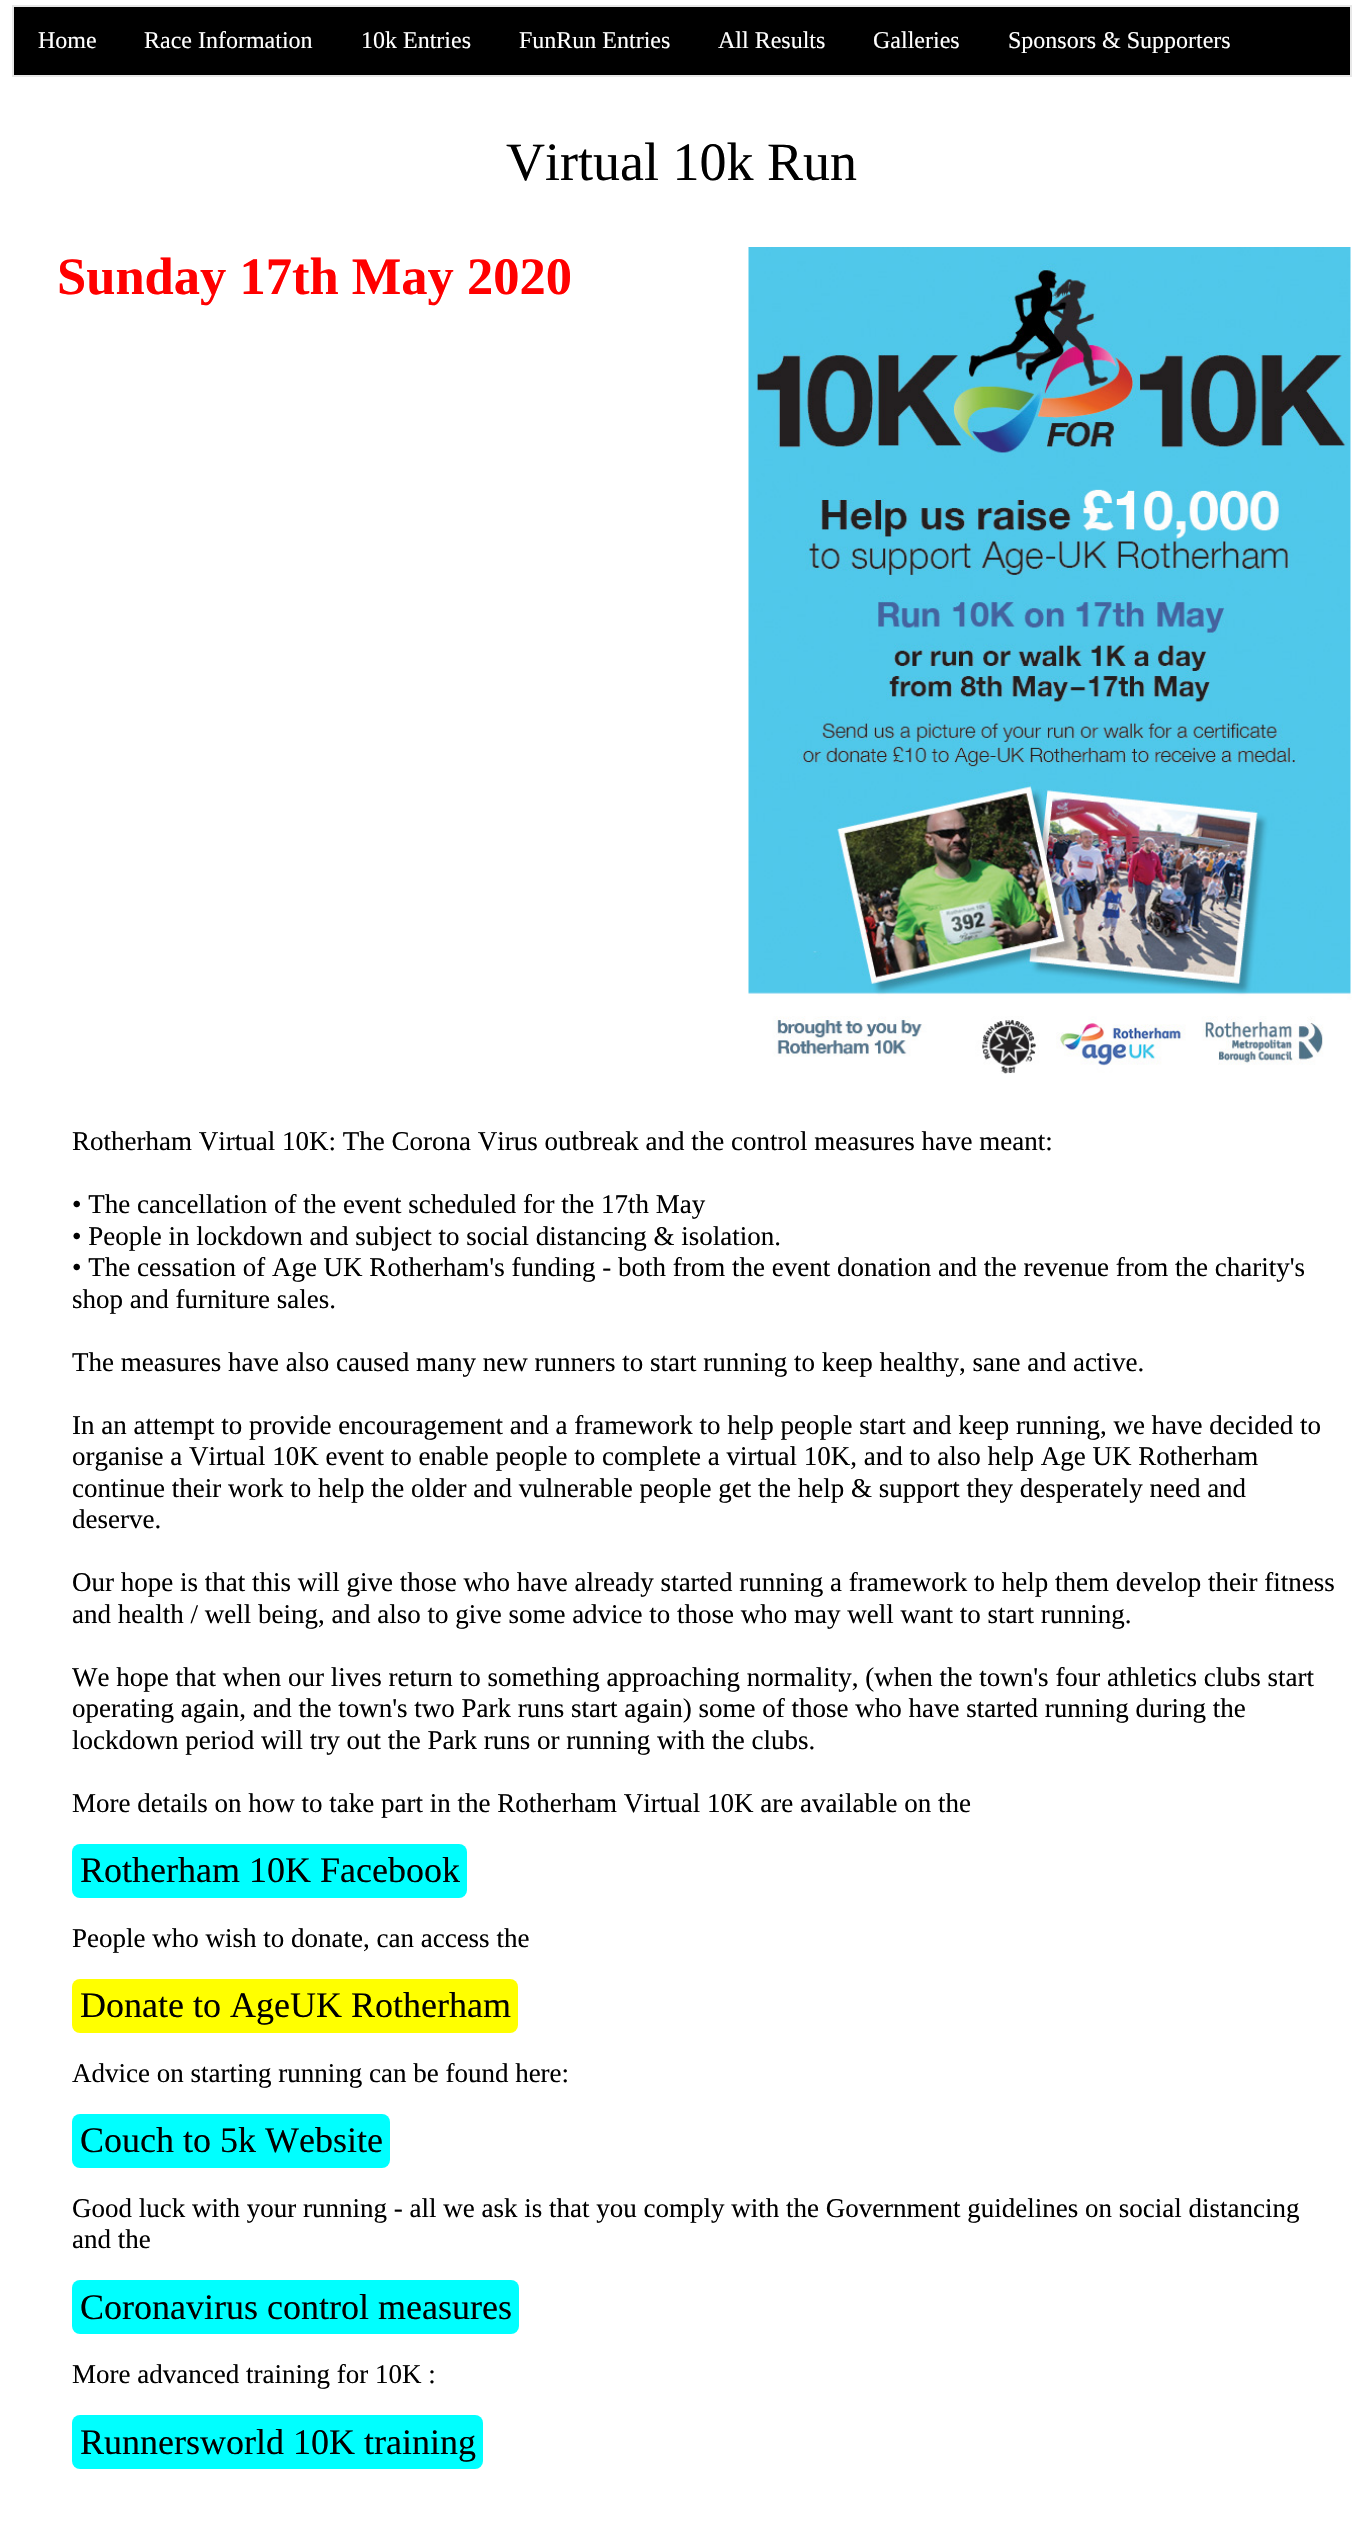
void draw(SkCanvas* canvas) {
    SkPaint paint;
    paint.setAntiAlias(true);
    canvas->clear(0xFFFFFFFF);
    paint.setColor(0xFF000000);
    canvas->drawRect(SkRect::MakeXYWH(13, 6, 1338, 70), paint);
    paint.setStyle(SkPaint::kStroke_Style);
    paint.setStrokeWidth(2);
    paint.setColor(0xFFE7E7E7);
    canvas->drawRect(SkRect::MakeXYWH(13, 6, 1338, 70), paint);
    SkFont font1(fontMgr->matchFamilyStyle("Liberation Serif", SkFontStyle::Normal()), 24);
    font1.setSubpixel(true);
    paint.setStyle(SkPaint::kFill_Style);
    paint.setColor(0xFFFFFFFF);
    canvas->drawString("Home", 38, 48, font1, paint);
    canvas->drawString("Race Information", 144, 48, font1, paint);
    canvas->drawString("10k Entries", 361, 48, font1, paint);
    canvas->drawString("FunRun Entries", 519, 48, font1, paint);
    canvas->drawString("All Results", 718, 48, font1, paint);
    canvas->drawString("Galleries", 873, 48, font1, paint);
    canvas->drawString("Sponsors & Supporters", 1008, 48, font1, paint);
    SkFont font2(fontMgr->matchFamilyStyle("Liberation Serif", SkFontStyle::Normal()), 54);
    font2.setSubpixel(true);
    paint.setColor(0xFF000000);
    canvas->drawString("Virtual 10k Run", 506, 180, font2, paint);
    SkFont font3(fontMgr->matchFamilyStyle("Liberation Serif", SkFontStyle::Bold()), 52.5f);
    font3.setSubpixel(true);
    paint.setColor(0xFFFF0000);
    canvas->drawString("Sunday 17th May 2020", 57, 294, font3, paint);
    canvas->drawImageRect(SkImages::DeferredFromEncodedData(SkData::MakeFromFileName("img1.png")), SkRect::MakeXYWH(748, 247, 604, 827), SkSamplingOptions());
    SkFont font4(fontMgr->matchFamilyStyle("Liberation Serif", SkFontStyle::Normal()), 27);
    font4.setSubpixel(true);
    paint.setColor(0xFF000000);
    canvas->drawString("Rotherham Virtual 10K: The Corona Virus outbreak and the control measures have meant:", 72, 1150, font4, paint);
    canvas->drawString("• The cancellation of the event scheduled for the 17th May", 72, 1213, font4, paint);
    canvas->drawString("• People in lockdown and subject to social distancing & isolation.", 72, 1245, font4, paint);
    canvas->drawString("• The cessation of Age UK Rotherham's funding - both from the event donation and the revenue from the charity's", 72, 1276, font4, paint);
    canvas->drawString("shop and furniture sales.", 72, 1308, font4, paint);
    canvas->drawString("The measures have also caused many new runners to start running to keep healthy, sane and active.", 72, 1371, font4, paint);
    canvas->drawString("In an attempt to provide encouragement and a framework to help people start and keep running, we have decided to", 72, 1434, font4, paint);
    canvas->drawString("organise a Virtual 10K event to enable people to complete a virtual 10K, and to also help Age UK Rotherham", 72, 1465, font4, paint);
    canvas->drawString("continue their work to help the older and vulnerable people get the help & support they desperately need and", 72, 1497, font4, paint);
    canvas->drawString("deserve.", 72, 1528, font4, paint);
    canvas->drawString("Our hope is that this will give those who have already started running a framework to help them develop their fitness", 72, 1591, font4, paint);
    canvas->drawString("and health / well being, and also to give some advice to those who may well want to start running.", 72, 1623, font4, paint);
    canvas->drawString("We hope that when our lives return to something approaching normality, (when the town's four athletics clubs start", 72, 1686, font4, paint);
    canvas->drawString("operating again, and the town's two Park runs start again) some of those who have started running during the", 72, 1717, font4, paint);
    canvas->drawString("lockdown period will try out the Park runs or running with the clubs.", 72, 1749, font4, paint);
    canvas->drawString("More details on how to take part in the Rotherham Virtual 10K are available on the", 72, 1812, font4, paint);
    paint.setColor(0xFF00FFFF);
    canvas->drawRoundRect(SkRect::MakeXYWH(72, 1844, 395, 54), 8, 8, paint);
    SkFont font5(fontMgr->matchFamilyStyle("Liberation Serif", SkFontStyle::Normal()), 36);
    font5.setSubpixel(true);
    paint.setColor(0xFF000000);
    canvas->drawString("Rotherham 10K Facebook", 80, 1882, font5, paint);
    canvas->drawString("People who wish to donate, can access the", 72, 1947, font4, paint);
    paint.setColor(0xFFFFFF00);
    canvas->drawRoundRect(SkRect::MakeXYWH(72, 1979, 446, 54), 8, 8, paint);
    paint.setColor(0xFF000000);
    canvas->drawString("Donate to AgeUK Rotherham", 80, 2017, font5, paint);
    canvas->drawString("Advice on starting running can be found here:", 72, 2082, font4, paint);
    paint.setColor(0xFF00FFFF);
    canvas->drawRoundRect(SkRect::MakeXYWH(72, 2114, 318, 54), 8, 8, paint);
    paint.setColor(0xFF000000);
    canvas->drawString("Couch to 5k Website", 80, 2152, font5, paint);
    canvas->drawString("Good luck with your running - all we ask is that you comply with the Government guidelines on social distancing", 72, 2217, font4, paint);
    canvas->drawString("and the", 72, 2248, font4, paint);
    paint.setColor(0xFF00FFFF);
    canvas->drawRoundRect(SkRect::MakeXYWH(72, 2280, 447, 54), 8, 8, paint);
    paint.setColor(0xFF000000);
    canvas->drawString("Coronavirus control measures", 80, 2319, font5, paint);
    canvas->drawString("More advanced training for 10K :", 72, 2383, font4, paint);
    paint.setColor(0xFF00FFFF);
    canvas->drawRoundRect(SkRect::MakeXYWH(72, 2415, 411, 54), 8, 8, paint);
    paint.setColor(0xFF000000);
    canvas->drawString("Runnersworld 10K training", 80, 2454, font5, paint);
}
